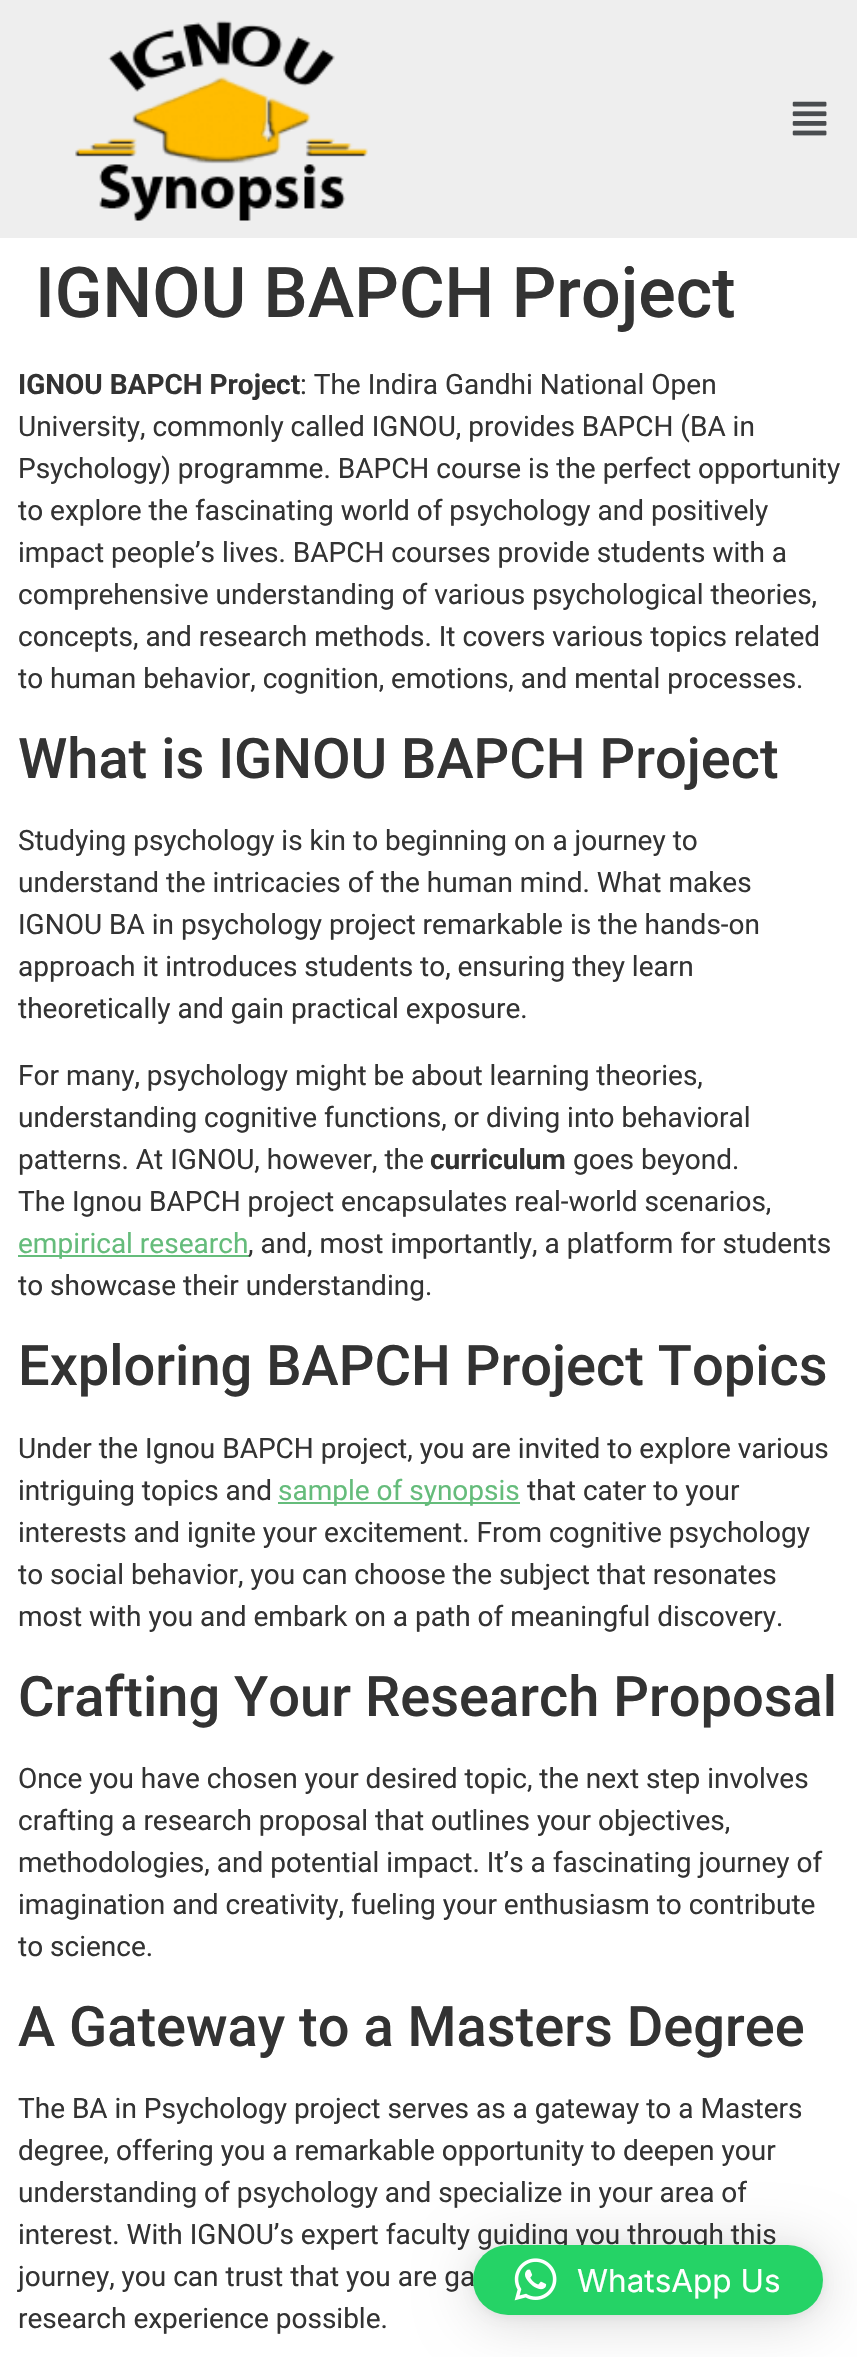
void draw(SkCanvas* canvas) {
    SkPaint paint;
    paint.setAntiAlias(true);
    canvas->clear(0xFFFFFFFF);
    paint.setColor(0xFFEEEEEE);
    canvas->drawRect(SkRect::MakeXYWH(0, 0, 857, 238), paint);
    canvas->drawImageRect(SkImages::DeferredFromEncodedData(SkData::MakeFromFileName("img1.png")), SkRect::MakeXYWH(75, 20, 293, 201), SkSamplingOptions());
    canvas->drawImageRect(SkImages::DeferredFromEncodedData(SkData::MakeFromFileName("img2.png")), SkRect::MakeXYWH(792, 101, 35, 35), SkSamplingOptions());
    SkFont font1(fontMgr->matchFamilyStyle("Roboto", SkFontStyle(500, SkFontStyle::kNormal_Width, SkFontStyle::kUpright_Slant)), 70);
    font1.setSubpixel(true);
    paint.setColor(0xFF333333);
    canvas->drawString("IGNOU BAPCH Project", 35, 317, font1, paint);
    SkFont font2(fontMgr->matchFamilyStyle("Roboto", SkFontStyle::Bold()), 28);
    font2.setSubpixel(true);
    canvas->drawString("IGNOU BAPCH Project", 18, 394, font2, paint);
    SkFont font3(fontMgr->matchFamilyStyle("Roboto", SkFontStyle::Normal()), 28);
    font3.setSubpixel(true);
    canvas->drawString(": The Indira Gandhi National Open", 300, 394, font3, paint);
    canvas->drawString("University, commonly called IGNOU, provides BAPCH (BA in", 18, 436, font3, paint);
    canvas->drawString("Psychology) programme. BAPCH course is the perfect opportunity", 18, 478, font3, paint);
    canvas->drawString("to explore the fascinating world of psychology and positively", 18, 520, font3, paint);
    canvas->drawString("impact people’s lives. BAPCH courses provide students with a", 18, 562, font3, paint);
    canvas->drawString("comprehensive understanding of various psychological theories,", 18, 604, font3, paint);
    canvas->drawString("concepts, and research methods. It covers various topics related", 18, 646, font3, paint);
    canvas->drawString("to human behavior, cognition, emotions, and mental processes.", 18, 688, font3, paint);
    SkFont font4(fontMgr->matchFamilyStyle("Roboto", SkFontStyle(500, SkFontStyle::kNormal_Width, SkFontStyle::kUpright_Slant)), 56);
    font4.setSubpixel(true);
    canvas->drawString("What is IGNOU BAPCH Project", 18, 778, font4, paint);
    canvas->drawString("Studying psychology is kin to beginning on a journey to", 18, 850, font3, paint);
    canvas->drawString("understand the intricacies of the human mind. What makes", 18, 892, font3, paint);
    canvas->drawString("IGNOU BA in psychology project remarkable is the hands-on", 18, 934, font3, paint);
    canvas->drawString("approach it introduces students to, ensuring they learn", 18, 976, font3, paint);
    canvas->drawString("theoretically and gain practical exposure.", 18, 1018, font3, paint);
    canvas->drawString("For many, psychology might be about learning theories,", 18, 1085, font3, paint);
    canvas->drawString("understanding cognitive functions, or diving into behavioral", 18, 1127, font3, paint);
    canvas->drawString("patterns. At IGNOU, however, the", 18, 1169, font3, paint);
    canvas->drawString("curriculum", 430, 1169, font2, paint);
    canvas->drawString("goes beyond.", 573, 1169, font3, paint);
    canvas->drawString("The Ignou BAPCH project encapsulates real-world scenarios,", 18, 1211, font3, paint);
    paint.setColor(0xFF65BC7B);
    canvas->drawRect(SkRect::MakeXYWH(18, 1255, 231, 2), paint);
    canvas->drawString("empirical research", 18, 1253, font3, paint);
    paint.setColor(0xFF333333);
    canvas->drawString(", and, most importantly, a platform for students", 248, 1253, font3, paint);
    canvas->drawString("to showcase their understanding.", 18, 1295, font3, paint);
    canvas->drawString("Exploring BAPCH Project Topics", 18, 1385, font4, paint);
    canvas->drawString("Under the Ignou BAPCH project, you are invited to explore various", 18, 1458, font3, paint);
    canvas->drawString("intriguing topics and", 18, 1500, font3, paint);
    paint.setColor(0xFF65BC7B);
    canvas->drawRect(SkRect::MakeXYWH(278, 1502, 242, 2), paint);
    canvas->drawString("sample of synopsis", 278, 1500, font3, paint);
    paint.setColor(0xFF333333);
    canvas->drawString("that cater to your", 527, 1500, font3, paint);
    canvas->drawString("interests and ignite your excitement. From cognitive psychology", 18, 1542, font3, paint);
    canvas->drawString("to social behavior, you can choose the subject that resonates", 18, 1584, font3, paint);
    canvas->drawString("most with you and embark on a path of meaningful discovery.", 18, 1626, font3, paint);
    canvas->drawString("Crafting Your Research Proposal", 18, 1716, font4, paint);
    canvas->drawString("Once you have chosen your desired topic, the next step involves", 18, 1788, font3, paint);
    canvas->drawString("crafting a research proposal that outlines your objectives,", 18, 1830, font3, paint);
    canvas->drawString("methodologies, and potential impact. It’s a fascinating journey of", 18, 1872, font3, paint);
    canvas->drawString("imagination and creativity, fueling your enthusiasm to contribute", 18, 1914, font3, paint);
    canvas->drawString("to science.", 18, 1956, font3, paint);
    canvas->drawString("A Gateway to a Masters Degree", 18, 2046, font4, paint);
    canvas->drawString("The BA in Psychology project serves as a gateway to a Masters", 18, 2118, font3, paint);
    canvas->drawString("degree, offering you a remarkable opportunity to deepen your", 18, 2160, font3, paint);
    canvas->drawString("understanding of psychology and specialize in your area of", 18, 2202, font3, paint);
    canvas->drawString("interest. With IGNOU’s expert faculty guiding you through this", 18, 2244, font3, paint);
    canvas->drawString("journey, you can trust that you are ga", 18, 2286, font3, paint);
    canvas->drawString("research experience possible.", 18, 2328, font3, paint);
    paint.setColor(0x29000000);
    paint.setMaskFilter(SkMaskFilter::MakeBlur(kNormal_SkBlurStyle, 28));
    canvas->drawRoundRect(SkRect::MakeXYWH(473, 2249, 350, 70), 35, 35, paint);
    paint.setMaskFilter(nullptr);
    paint.setColor(0x0F000000);
    paint.setMaskFilter(SkMaskFilter::MakeBlur(kNormal_SkBlurStyle, 5));
    canvas->drawRoundRect(SkRect::MakeXYWH(473, 2247, 350, 70), 35, 35, paint);
    paint.setMaskFilter(nullptr);
    paint.setColor(0xFF25D366);
    canvas->drawRoundRect(SkRect::MakeXYWH(473, 2245, 350, 70), 35, 35, paint);
    canvas->drawImageRect(SkImages::DeferredFromEncodedData(SkData::MakeFromFileName("img3.png")), SkRect::MakeXYWH(514, 2258, 43, 43), SkSamplingOptions());
    SkFont font5(fontMgr->matchFamilyStyle("Inter", SkFontStyle::Normal()), 31.5f);
    font5.setSubpixel(true);
    paint.setColor(0xFFFFFFFF);
    canvas->drawString("WhatsApp Us", 577, 2292, font5, paint);
}
